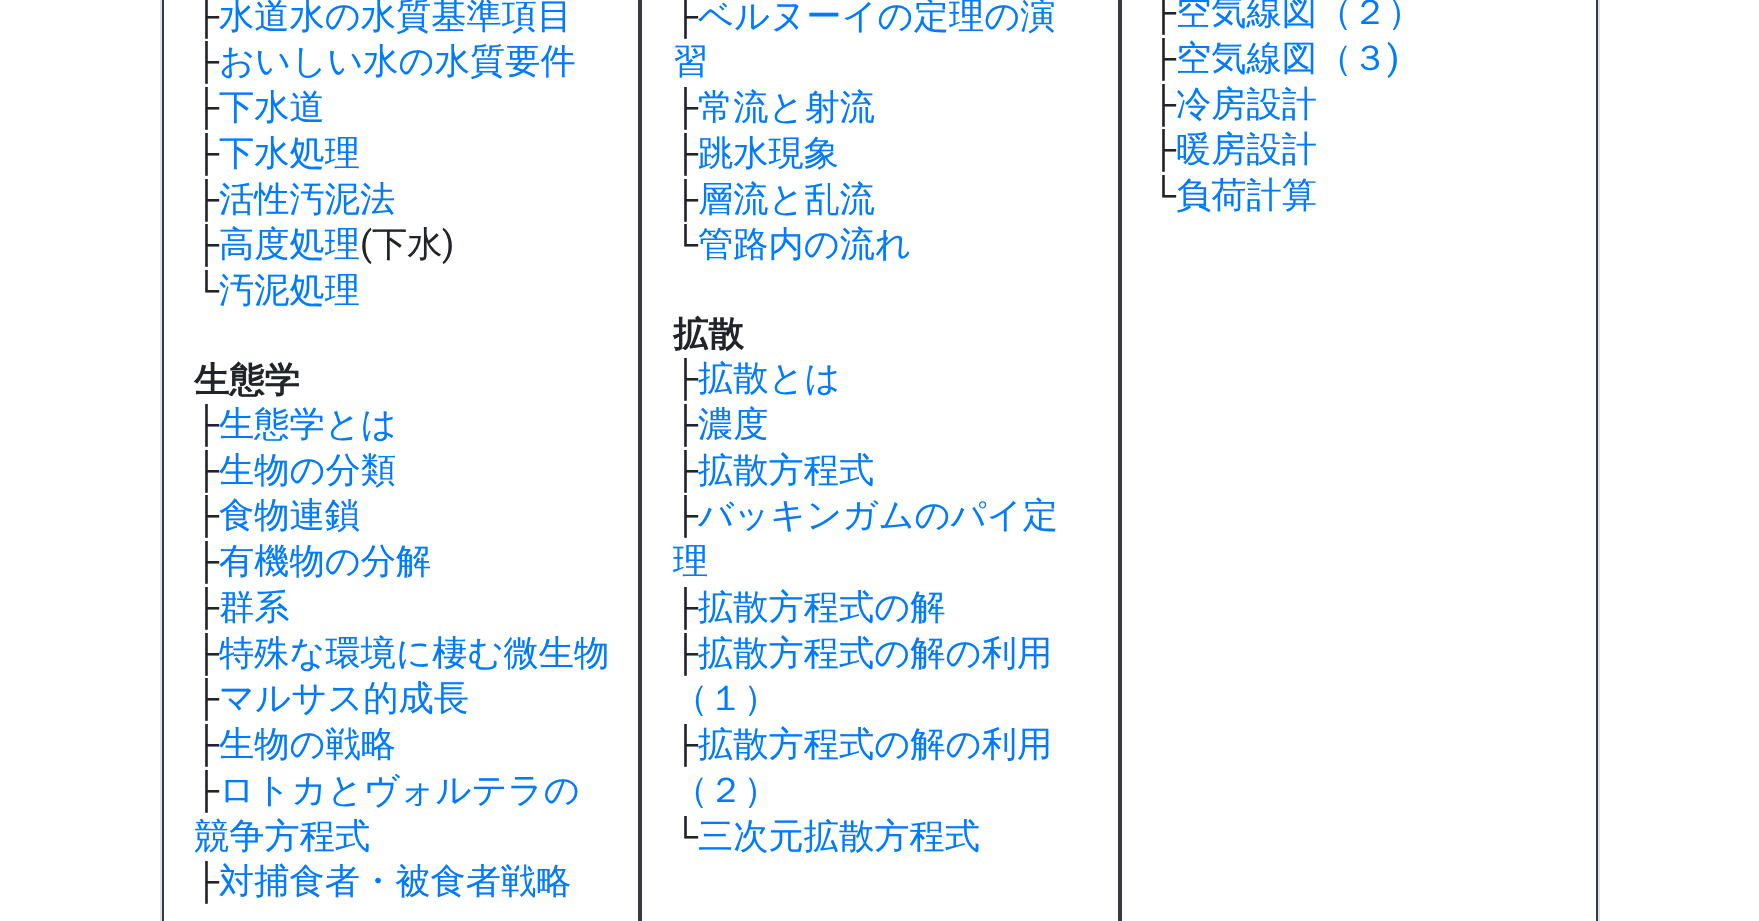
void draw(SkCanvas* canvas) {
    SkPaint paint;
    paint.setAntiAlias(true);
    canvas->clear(0xFFFFFFFF);
    paint.setStyle(SkPaint::kStroke_Style);
    paint.setStrokeWidth(2);
    paint.setColor(0xFFDEE2E6);
    canvas->drawRect(SkRect::MakeXYWH(161, -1, 1438, 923), paint);
    paint.setColor(0xFF343A40);
    canvas->drawRect(SkRect::MakeXYWH(163, -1, 476, 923), paint);
    SkFont font1(fontMgr->matchFamilyStyle("Liberation Sans", SkFontStyle::Normal()), 35.25f);
    font1.setSubpixel(true);
    paint.setStyle(SkPaint::kFill_Style);
    paint.setColor(0xFF212529);
    canvas->drawString("├", 194, 28, font1, paint);
    SkFont font2(fontMgr->matchFamilyStyle("WenQuanYi Zen Hei", SkFontStyle(500, SkFontStyle::kNormal_Width, SkFontStyle::kUpright_Slant)), 35.25f);
    font2.setSubpixel(true);
    paint.setColor(0xFF007BFF);
    canvas->drawString("水道水の水質基準項目", 219, 28, font2, paint);
    paint.setColor(0xFF212529);
    canvas->drawString("├", 194, 73, font1, paint);
    paint.setColor(0xFF007BFF);
    canvas->drawString("おいしい水の水質要件", 219, 73, font2, paint);
    paint.setColor(0xFF212529);
    canvas->drawString("├", 194, 119, font1, paint);
    paint.setColor(0xFF007BFF);
    canvas->drawString("下水道", 219, 119, font2, paint);
    paint.setColor(0xFF212529);
    canvas->drawString("├", 194, 165, font1, paint);
    paint.setColor(0xFF007BFF);
    canvas->drawString("下水処理", 219, 165, font2, paint);
    paint.setColor(0xFF212529);
    canvas->drawString("├", 194, 211, font1, paint);
    paint.setColor(0xFF007BFF);
    canvas->drawString("活性汚泥法", 219, 211, font2, paint);
    paint.setColor(0xFF212529);
    canvas->drawString("├", 194, 256, font1, paint);
    paint.setColor(0xFF007BFF);
    canvas->drawString("高度処理", 219, 256, font2, paint);
    SkFont font3(fontMgr->matchFamilyStyle("Roboto", SkFontStyle::Normal()), 35.25f);
    font3.setSubpixel(true);
    paint.setColor(0xFF212529);
    canvas->drawString("(", 360, 256, font3, paint);
    canvas->drawString("下水", 372, 256, font2, paint);
    canvas->drawString(")", 442, 256, font3, paint);
    canvas->drawString("└", 194, 302, font1, paint);
    paint.setColor(0xFF007BFF);
    canvas->drawString("汚泥処理", 219, 302, font2, paint);
    SkFont font4(fontMgr->matchFamilyStyle("WenQuanYi Zen Hei", SkFontStyle::Bold()), 35.25f);
    font4.setSubpixel(true);
    paint.setColor(0xFF212529);
    canvas->drawString("生態学", 194, 392, font4, paint);
    canvas->drawString("├", 194, 436, font1, paint);
    paint.setColor(0xFF007BFF);
    canvas->drawString("生態学とは", 219, 436, font2, paint);
    paint.setColor(0xFF212529);
    canvas->drawString("├", 194, 482, font1, paint);
    paint.setColor(0xFF007BFF);
    canvas->drawString("生物の分類", 219, 482, font2, paint);
    paint.setColor(0xFF212529);
    canvas->drawString("├", 194, 527, font1, paint);
    paint.setColor(0xFF007BFF);
    canvas->drawString("食物連鎖", 219, 527, font2, paint);
    paint.setColor(0xFF212529);
    canvas->drawString("├", 194, 573, font1, paint);
    paint.setColor(0xFF007BFF);
    canvas->drawString("有機物の分解", 219, 573, font2, paint);
    paint.setColor(0xFF212529);
    canvas->drawString("├", 194, 619, font1, paint);
    paint.setColor(0xFF007BFF);
    canvas->drawString("群系", 219, 619, font2, paint);
    paint.setColor(0xFF212529);
    canvas->drawString("├", 194, 665, font1, paint);
    paint.setColor(0xFF007BFF);
    canvas->drawString("特殊な環境に棲む微生物", 219, 665, font2, paint);
    paint.setColor(0xFF212529);
    canvas->drawString("├", 194, 710, font1, paint);
    paint.setColor(0xFF007BFF);
    canvas->drawString("マルサス的成長", 219, 710, font2, paint);
    paint.setColor(0xFF212529);
    canvas->drawString("├", 194, 756, font1, paint);
    paint.setColor(0xFF007BFF);
    canvas->drawString("生物の戦略", 219, 756, font2, paint);
    paint.setColor(0xFF212529);
    canvas->drawString("├", 194, 802, font1, paint);
    paint.setColor(0xFF007BFF);
    canvas->drawString("ロトカとヴォルテラの", 219, 802, font2, paint);
    canvas->drawString("競争方程式", 194, 848, font2, paint);
    paint.setColor(0xFF212529);
    canvas->drawString("├", 194, 893, font1, paint);
    paint.setColor(0xFF007BFF);
    canvas->drawString("対捕食者・被食者戦略", 219, 893, font2, paint);
    paint.setStyle(SkPaint::kStroke_Style);
    paint.setColor(0xFF343A40);
    canvas->drawRect(SkRect::MakeXYWH(641, -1, 478, 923), paint);
    paint.setStyle(SkPaint::kFill_Style);
    paint.setColor(0xFF212529);
    canvas->drawString("├", 673, 28, font1, paint);
    paint.setColor(0xFF007BFF);
    canvas->drawString("ベルヌーイの定理の演", 698, 28, font2, paint);
    canvas->drawString("習", 673, 73, font2, paint);
    paint.setColor(0xFF212529);
    canvas->drawString("├", 673, 119, font1, paint);
    paint.setColor(0xFF007BFF);
    canvas->drawString("常流と射流", 698, 119, font2, paint);
    paint.setColor(0xFF212529);
    canvas->drawString("├", 673, 165, font1, paint);
    paint.setColor(0xFF007BFF);
    canvas->drawString("跳水現象", 698, 165, font2, paint);
    paint.setColor(0xFF212529);
    canvas->drawString("├", 673, 211, font1, paint);
    paint.setColor(0xFF007BFF);
    canvas->drawString("層流と乱流", 698, 211, font2, paint);
    paint.setColor(0xFF212529);
    canvas->drawString("└", 673, 256, font1, paint);
    paint.setColor(0xFF007BFF);
    canvas->drawString("管路内の流れ", 698, 256, font2, paint);
    paint.setColor(0xFF212529);
    canvas->drawString("拡散", 673, 346, font4, paint);
    canvas->drawString("├", 673, 390, font1, paint);
    paint.setColor(0xFF007BFF);
    canvas->drawString("拡散とは", 698, 390, font2, paint);
    paint.setColor(0xFF212529);
    canvas->drawString("├", 673, 436, font1, paint);
    paint.setColor(0xFF007BFF);
    canvas->drawString("濃度", 698, 436, font2, paint);
    paint.setColor(0xFF212529);
    canvas->drawString("├", 673, 482, font1, paint);
    paint.setColor(0xFF007BFF);
    canvas->drawString("拡散方程式", 698, 482, font2, paint);
    paint.setColor(0xFF212529);
    canvas->drawString("├", 673, 527, font1, paint);
    paint.setColor(0xFF007BFF);
    canvas->drawString("バッキンガムのパイ定", 698, 527, font2, paint);
    canvas->drawString("理", 673, 573, font2, paint);
    paint.setColor(0xFF212529);
    canvas->drawString("├", 673, 619, font1, paint);
    paint.setColor(0xFF007BFF);
    canvas->drawString("拡散方程式の解", 698, 619, font2, paint);
    paint.setColor(0xFF212529);
    canvas->drawString("├", 673, 665, font1, paint);
    paint.setColor(0xFF007BFF);
    canvas->drawString("拡散方程式の解の利用", 698, 665, font2, paint);
    canvas->drawString("（１）", 673, 710, font2, paint);
    paint.setColor(0xFF212529);
    canvas->drawString("├", 673, 756, font1, paint);
    paint.setColor(0xFF007BFF);
    canvas->drawString("拡散方程式の解の利用", 698, 756, font2, paint);
    canvas->drawString("（２）", 673, 802, font2, paint);
    paint.setColor(0xFF212529);
    canvas->drawString("└", 673, 848, font1, paint);
    paint.setColor(0xFF007BFF);
    canvas->drawString("三次元拡散方程式", 698, 848, font2, paint);
    paint.setStyle(SkPaint::kStroke_Style);
    paint.setColor(0xFF343A40);
    canvas->drawRect(SkRect::MakeXYWH(1121, -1, 476, 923), paint);
    paint.setStyle(SkPaint::kFill_Style);
    paint.setColor(0xFF212529);
    canvas->drawString("├", 1151, 24, font1, paint);
    paint.setColor(0xFF007BFF);
    canvas->drawString("空気線図（２）", 1176, 24, font2, paint);
    paint.setColor(0xFF212529);
    canvas->drawString("├", 1151, 70, font1, paint);
    paint.setColor(0xFF007BFF);
    canvas->drawString("空気線図（３", 1176, 70, font2, paint);
    canvas->drawString(")", 1387, 70, font3, paint);
    paint.setColor(0xFF212529);
    canvas->drawString("├", 1151, 116, font1, paint);
    paint.setColor(0xFF007BFF);
    canvas->drawString("冷房設計", 1176, 116, font2, paint);
    paint.setColor(0xFF212529);
    canvas->drawString("├", 1151, 161, font1, paint);
    paint.setColor(0xFF007BFF);
    canvas->drawString("暖房設計", 1176, 161, font2, paint);
    paint.setColor(0xFF212529);
    canvas->drawString("└", 1151, 207, font1, paint);
    paint.setColor(0xFF007BFF);
    canvas->drawString("負荷計算", 1176, 207, font2, paint);
}
